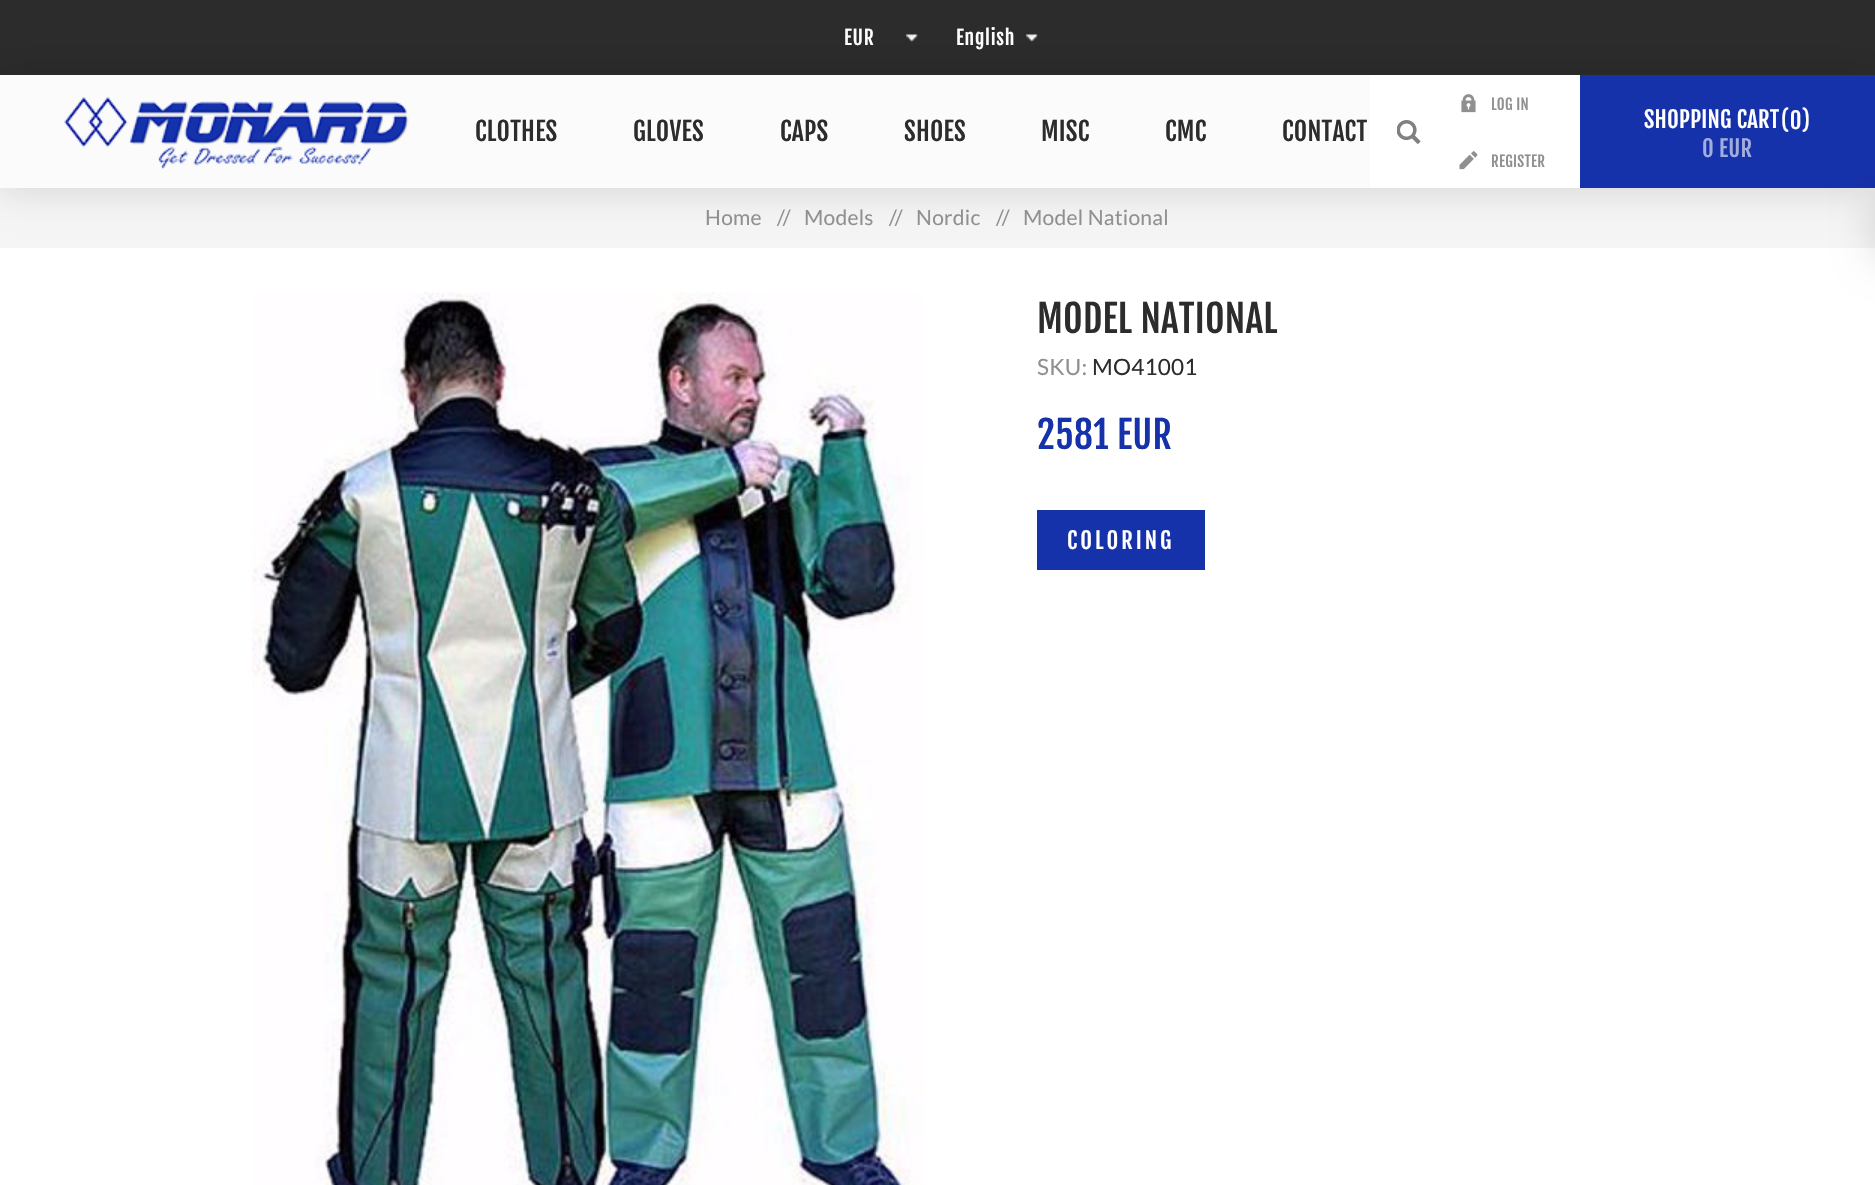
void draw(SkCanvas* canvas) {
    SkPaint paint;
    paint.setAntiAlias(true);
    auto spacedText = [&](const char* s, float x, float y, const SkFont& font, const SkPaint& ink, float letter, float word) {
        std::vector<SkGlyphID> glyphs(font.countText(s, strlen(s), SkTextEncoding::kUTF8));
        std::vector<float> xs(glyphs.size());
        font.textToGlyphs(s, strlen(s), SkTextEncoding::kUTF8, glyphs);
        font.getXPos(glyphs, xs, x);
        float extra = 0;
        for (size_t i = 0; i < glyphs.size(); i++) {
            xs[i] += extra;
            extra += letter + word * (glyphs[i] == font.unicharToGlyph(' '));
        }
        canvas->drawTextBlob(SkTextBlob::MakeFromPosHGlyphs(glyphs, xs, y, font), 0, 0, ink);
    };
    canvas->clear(0xFFF0F0F0);
    paint.setColor(0xFF2C2C2C);
    canvas->drawRect(SkRect::MakeXYWH(0, 0, 1875, 75), paint);
    canvas->drawImageRect(SkImages::DeferredFromEncodedData(SkData::MakeFromFileName("img1.png")), SkRect::MakeXYWH(906, 34, 12, 8), SkSamplingOptions());
    SkFont font1(fontMgr->matchFamilyStyle("Fjalla One", SkFontStyle::Normal()), 19.5f);
    font1.setSubpixel(true);
    paint.setColor(0xFFFFFFFF);
    spacedText("EUR", 844, 45, font1, paint, 0.75f, 0);
    canvas->drawImageRect(SkImages::DeferredFromEncodedData(SkData::MakeFromFileName("img2.png")), SkRect::MakeXYWH(1026, 34, 12, 8), SkSamplingOptions());
    spacedText("English", 956, 45, font1, paint, 0.75f, 0);
    paint.setColor(0xFFF5F5F5);
    canvas->drawRect(SkRect::MakeXYWH(0, 188, 1875, 60), paint);
    canvas->save();
    canvas->clipPath(SkPathBuilder(SkPathFillType::kEvenOdd).moveTo(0, 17).lineTo(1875, 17).lineTo(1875, 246).lineTo(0, 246).close().moveTo(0, 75).lineTo(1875, 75).lineTo(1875, 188).lineTo(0, 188).close().detach(), true);
    paint.setColor(0x26000000);
    paint.setMaskFilter(SkMaskFilter::MakeBlur(kNormal_SkBlurStyle, 19));
    canvas->drawRect(SkRect::MakeXYWH(0, 75, 1875, 113), paint);
    paint.setMaskFilter(nullptr);
    canvas->restore();
    paint.setColor(0xB3FFFFFF);
    canvas->drawRect(SkRect::MakeXYWH(0, 75, 1370, 113), paint);
    canvas->drawImageRect(SkImages::DeferredFromEncodedData(SkData::MakeFromFileName("img3.png")), SkRect::MakeXYWH(64, 97, 345, 72), SkSamplingOptions());
    SkFont font2(fontMgr->matchFamilyStyle("Fjalla One", SkFontStyle::Normal()), 25.5f);
    font2.setSubpixel(true);
    paint.setColor(0xFF2C2C2C);
    spacedText("CLOTHES", 475, 141, font2, paint, 0.25f, 0);
    spacedText("GLOVES", 633, 141, font2, paint, 0.25f, 0);
    spacedText("CAPS", 780, 141, font2, paint, 0.25f, 0);
    spacedText("SHOES", 904, 141, font2, paint, 0.25f, 0);
    spacedText("MISC", 1041, 141, font2, paint, 0.25f, 0);
    spacedText("CMC", 1165, 141, font2, paint, 0.25f, 0);
    spacedText("CONTACT", 1282, 141, font2, paint, 0.25f, 0);
    paint.setColor(0xFFFFFFFF);
    canvas->drawRect(SkRect::MakeXYWH(1370, 75, 76, 113), paint);
    canvas->drawImageRect(SkImages::DeferredFromEncodedData(SkData::MakeFromFileName("img4.png")), SkRect::MakeXYWH(1397, 120, 24, 24), SkSamplingOptions());
    canvas->drawRect(SkRect::MakeXYWH(1446, 75, 134, 113), paint);
    canvas->drawImageRect(SkImages::DeferredFromEncodedData(SkData::MakeFromFileName("img5.png")), SkRect::MakeXYWH(1461, 94, 15, 19), SkSamplingOptions());
    SkFont font3(fontMgr->matchFamilyStyle("Fjalla One", SkFontStyle::Normal()), 15);
    font3.setSubpixel(true);
    paint.setColor(0xFF909090);
    spacedText("LOG IN", 1491, 110, font3, paint, 0.25f, 0);
    canvas->drawImageRect(SkImages::DeferredFromEncodedData(SkData::MakeFromFileName("img6.png")), SkRect::MakeXYWH(1459, 151, 19, 19), SkSamplingOptions());
    spacedText("REGISTER", 1491, 167, font3, paint, 0.25f, 0);
    paint.setColor(0xFF1632AB);
    canvas->drawRect(SkRect::MakeXYWH(1580, 75, 295, 113), paint);
    SkFont font4(fontMgr->matchFamilyStyle("Fjalla One", SkFontStyle::Normal()), 22.5f);
    font4.setSubpixel(true);
    paint.setColor(0xFFFFFFFF);
    spacedText("SHOPPING CART", 1644, 128, font4, paint, 0.25f, 0);
    spacedText("(0)", 1781, 129, font4, paint, 0.25f, 0);
    paint.setColor(0xFFA2ADDD);
    spacedText("0 EUR", 1702, 157, font4, paint, 0.25f, 0);
    paint.setColor(0xFFFFFFFF);
    canvas->drawRect(SkRect::MakeXYWH(0, 248, 1875, 937), paint);
    paint.setColor(0x26000000);
    paint.setMaskFilter(SkMaskFilter::MakeBlur(kNormal_SkBlurStyle, 19));
    canvas->drawRect(SkRect::MakeXYWH(1875, 188, 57, 70), paint);
    paint.setMaskFilter(nullptr);
    SkFont font5(fontMgr->matchFamilyStyle("Lato", SkFontStyle::Normal()), 21);
    font5.setSubpixel(true);
    paint.setColor(0xFF909090);
    spacedText("Home", 705, 225, font5, paint, 0.25f, 0);
    spacedText("//", 777, 225, font5, paint, -2, 0);
    spacedText("Models", 804, 225, font5, paint, 0.25f, 0);
    spacedText("//", 889, 225, font5, paint, -2, 0);
    spacedText("Nordic", 916, 225, font5, paint, 0.25f, 0);
    spacedText("//", 996, 225, font5, paint, -2, 0);
    spacedText("Model National", 1023, 225, font5, paint, 0.25f, 0);
    canvas->drawImageRect(SkImages::DeferredFromEncodedData(SkData::MakeFromFileName("img7.png")), SkRect::MakeXYWH(252, 292, 672, 893), SkSamplingOptions());
    SkFont font6(fontMgr->matchFamilyStyle("Fjalla One", SkFontStyle::Normal()), 37.5f);
    font6.setSubpixel(true);
    paint.setColor(0xFF2C2C2C);
    spacedText("MODEL NATIONAL", 1037, 333, font6, paint, 0.25f, 0);
    SkFont font7(fontMgr->matchFamilyStyle("Lato", SkFontStyle::Normal()), 22.5f);
    font7.setSubpixel(true);
    paint.setColor(0xFF909090);
    spacedText("SKU:", 1037, 375, font7, paint, 0.25f, 0);
    paint.setColor(0xFF2C2C2C);
    spacedText("MO41001", 1092, 375, font7, paint, 0.25f, 0);
    paint.setColor(0xFF1632AB);
    spacedText("2581 EUR", 1037, 449, font6, paint, 0.25f, 0);
    canvas->drawRect(SkRect::MakeXYWH(1037, 510, 168, 60), paint);
    paint.setColor(0xFFFFFFFF);
    spacedText("COLORING", 1067, 549, font4, paint, 3, 0);
}
